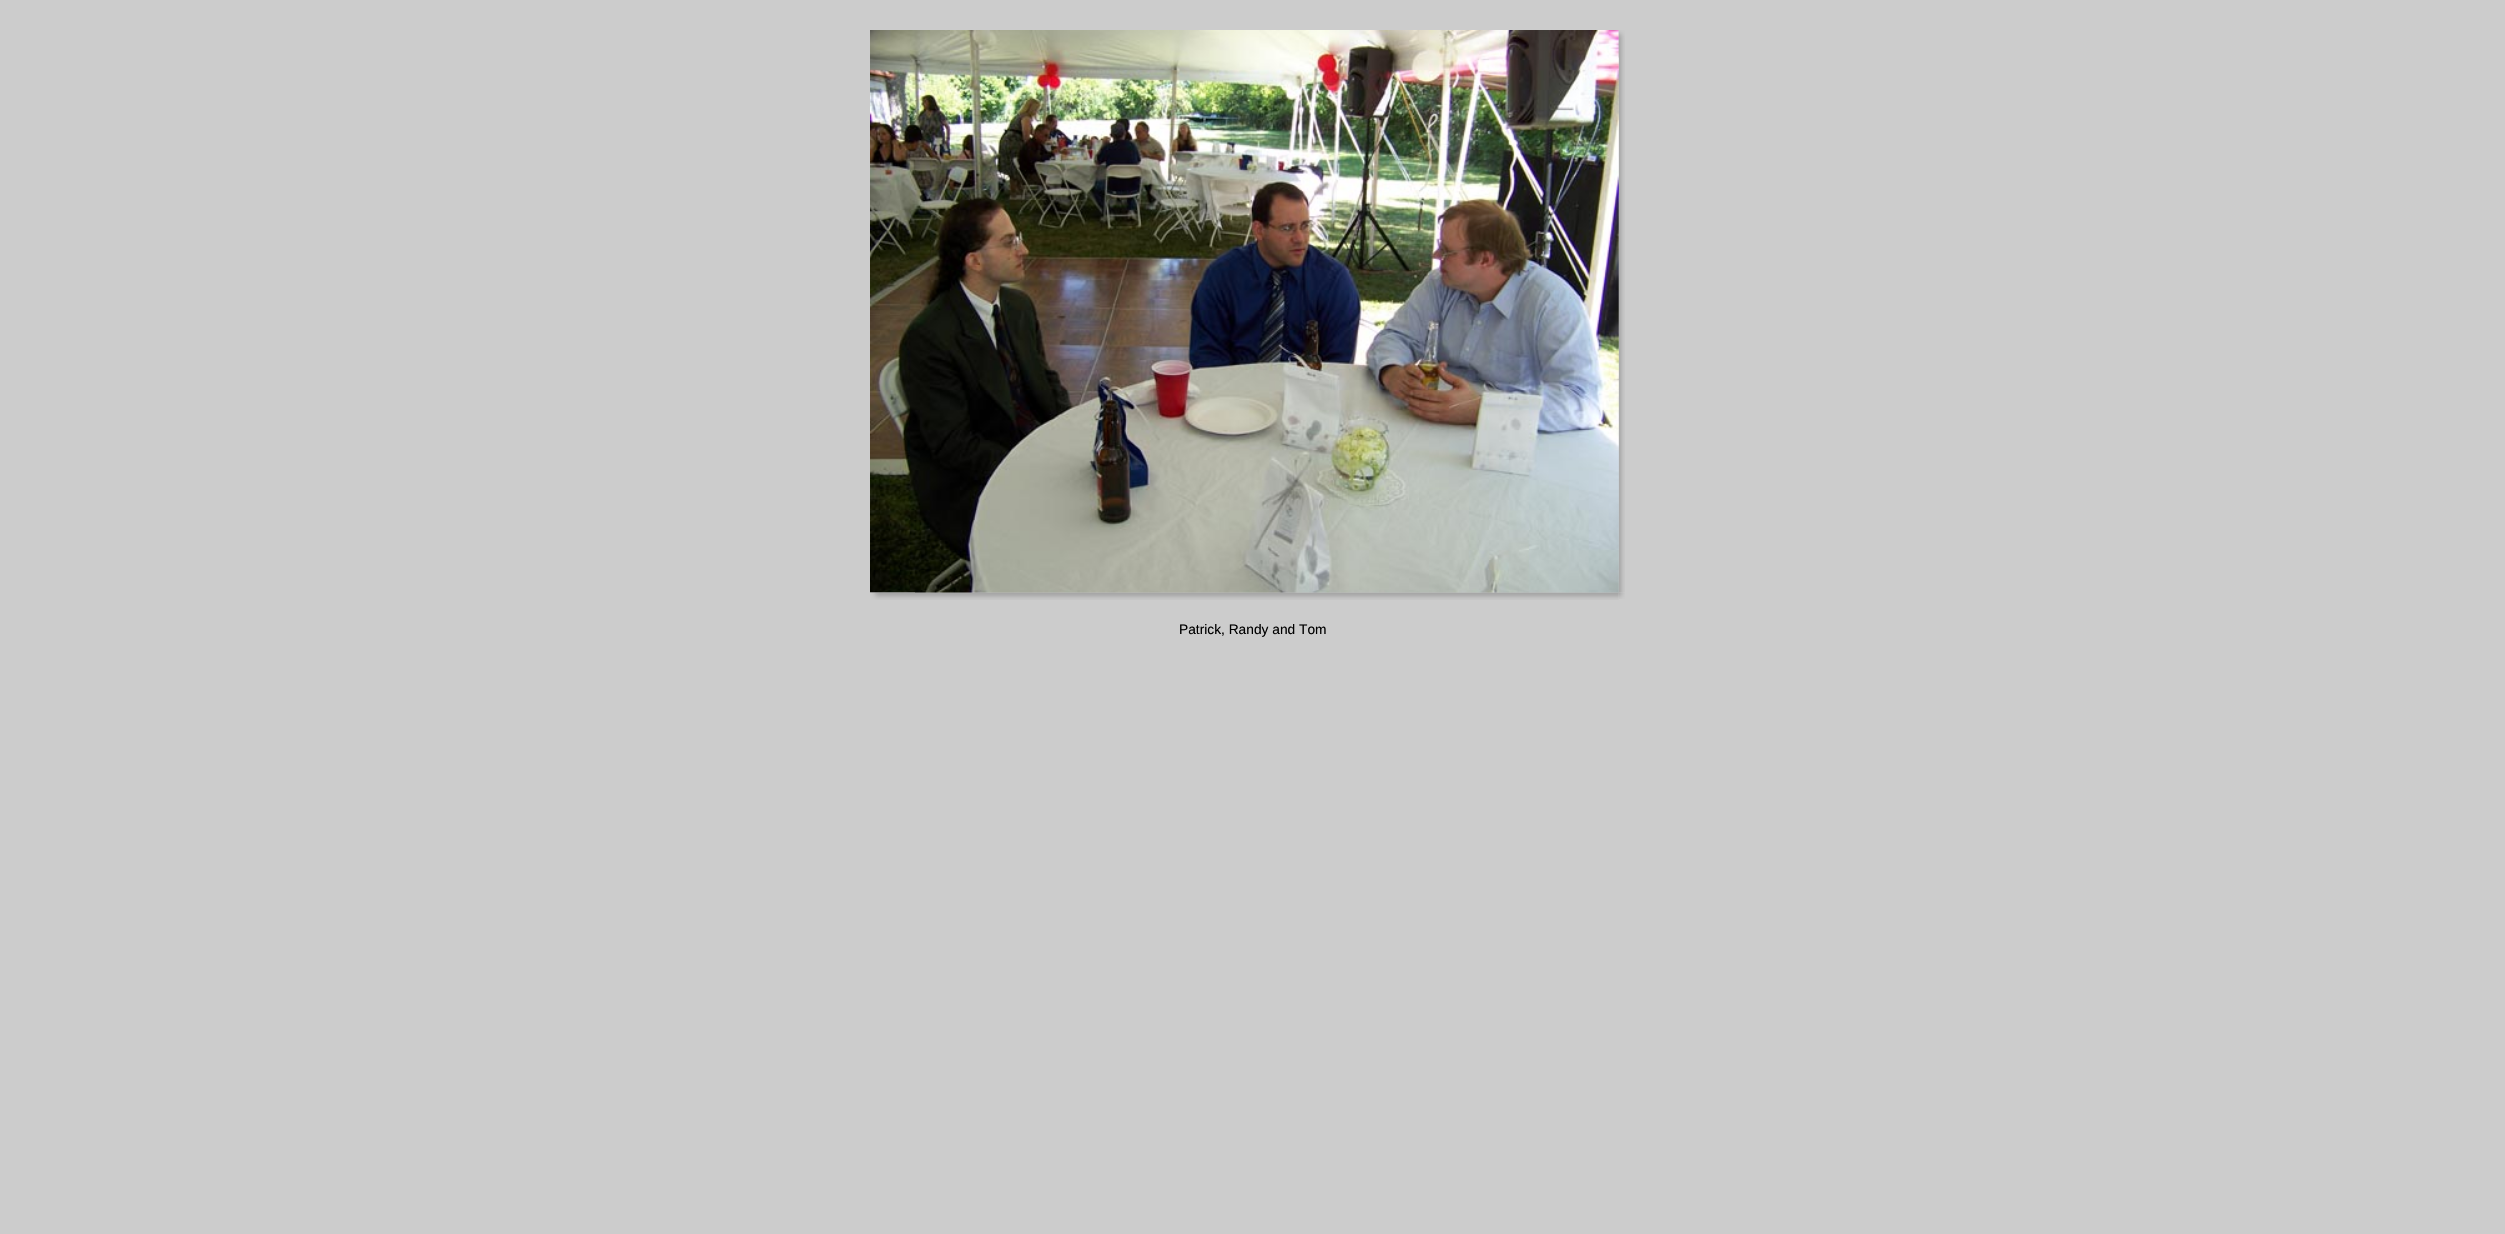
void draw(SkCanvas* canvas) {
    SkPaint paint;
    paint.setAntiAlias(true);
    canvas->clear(0xFFCCCCCC);
    canvas->drawImageRect(SkImages::DeferredFromEncodedData(SkData::MakeFromFileName("img2.png")), SkRect::MakeXYWH(1618, 30, 7, 563), SkSamplingOptions());
    canvas->drawImageRect(SkImages::DeferredFromEncodedData(SkData::MakeFromFileName("img4.png")), SkRect::MakeXYWH(870, 592, 749, 8), SkSamplingOptions());
    canvas->drawImageRect(SkImages::DeferredFromEncodedData(SkData::MakeFromFileName("img1.png")), SkRect::MakeXYWH(870, 30, 749, 563), SkSamplingOptions());
    canvas->drawImageRect(SkImages::DeferredFromEncodedData(SkData::MakeFromFileName("img3.png")), SkRect::MakeXYWH(1618, 30, 7, 28), SkSamplingOptions());
    canvas->drawImageRect(SkImages::DeferredFromEncodedData(SkData::MakeFromFileName("img5.png")), SkRect::MakeXYWH(870, 592, 45, 8), SkSamplingOptions());
    canvas->drawImageRect(SkImages::DeferredFromEncodedData(SkData::MakeFromFileName("img6.png")), SkRect::MakeXYWH(1619, 592, 6, 7), SkSamplingOptions());
    SkFont font1(fontMgr->matchFamilyStyle("Liberation Sans", SkFontStyle::Normal()), 13.75f);
    font1.setSubpixel(true);
    paint.setColor(0xFF000000);
    canvas->drawString("Patrick, Randy and Tom", 1179, 634, font1, paint);
}
